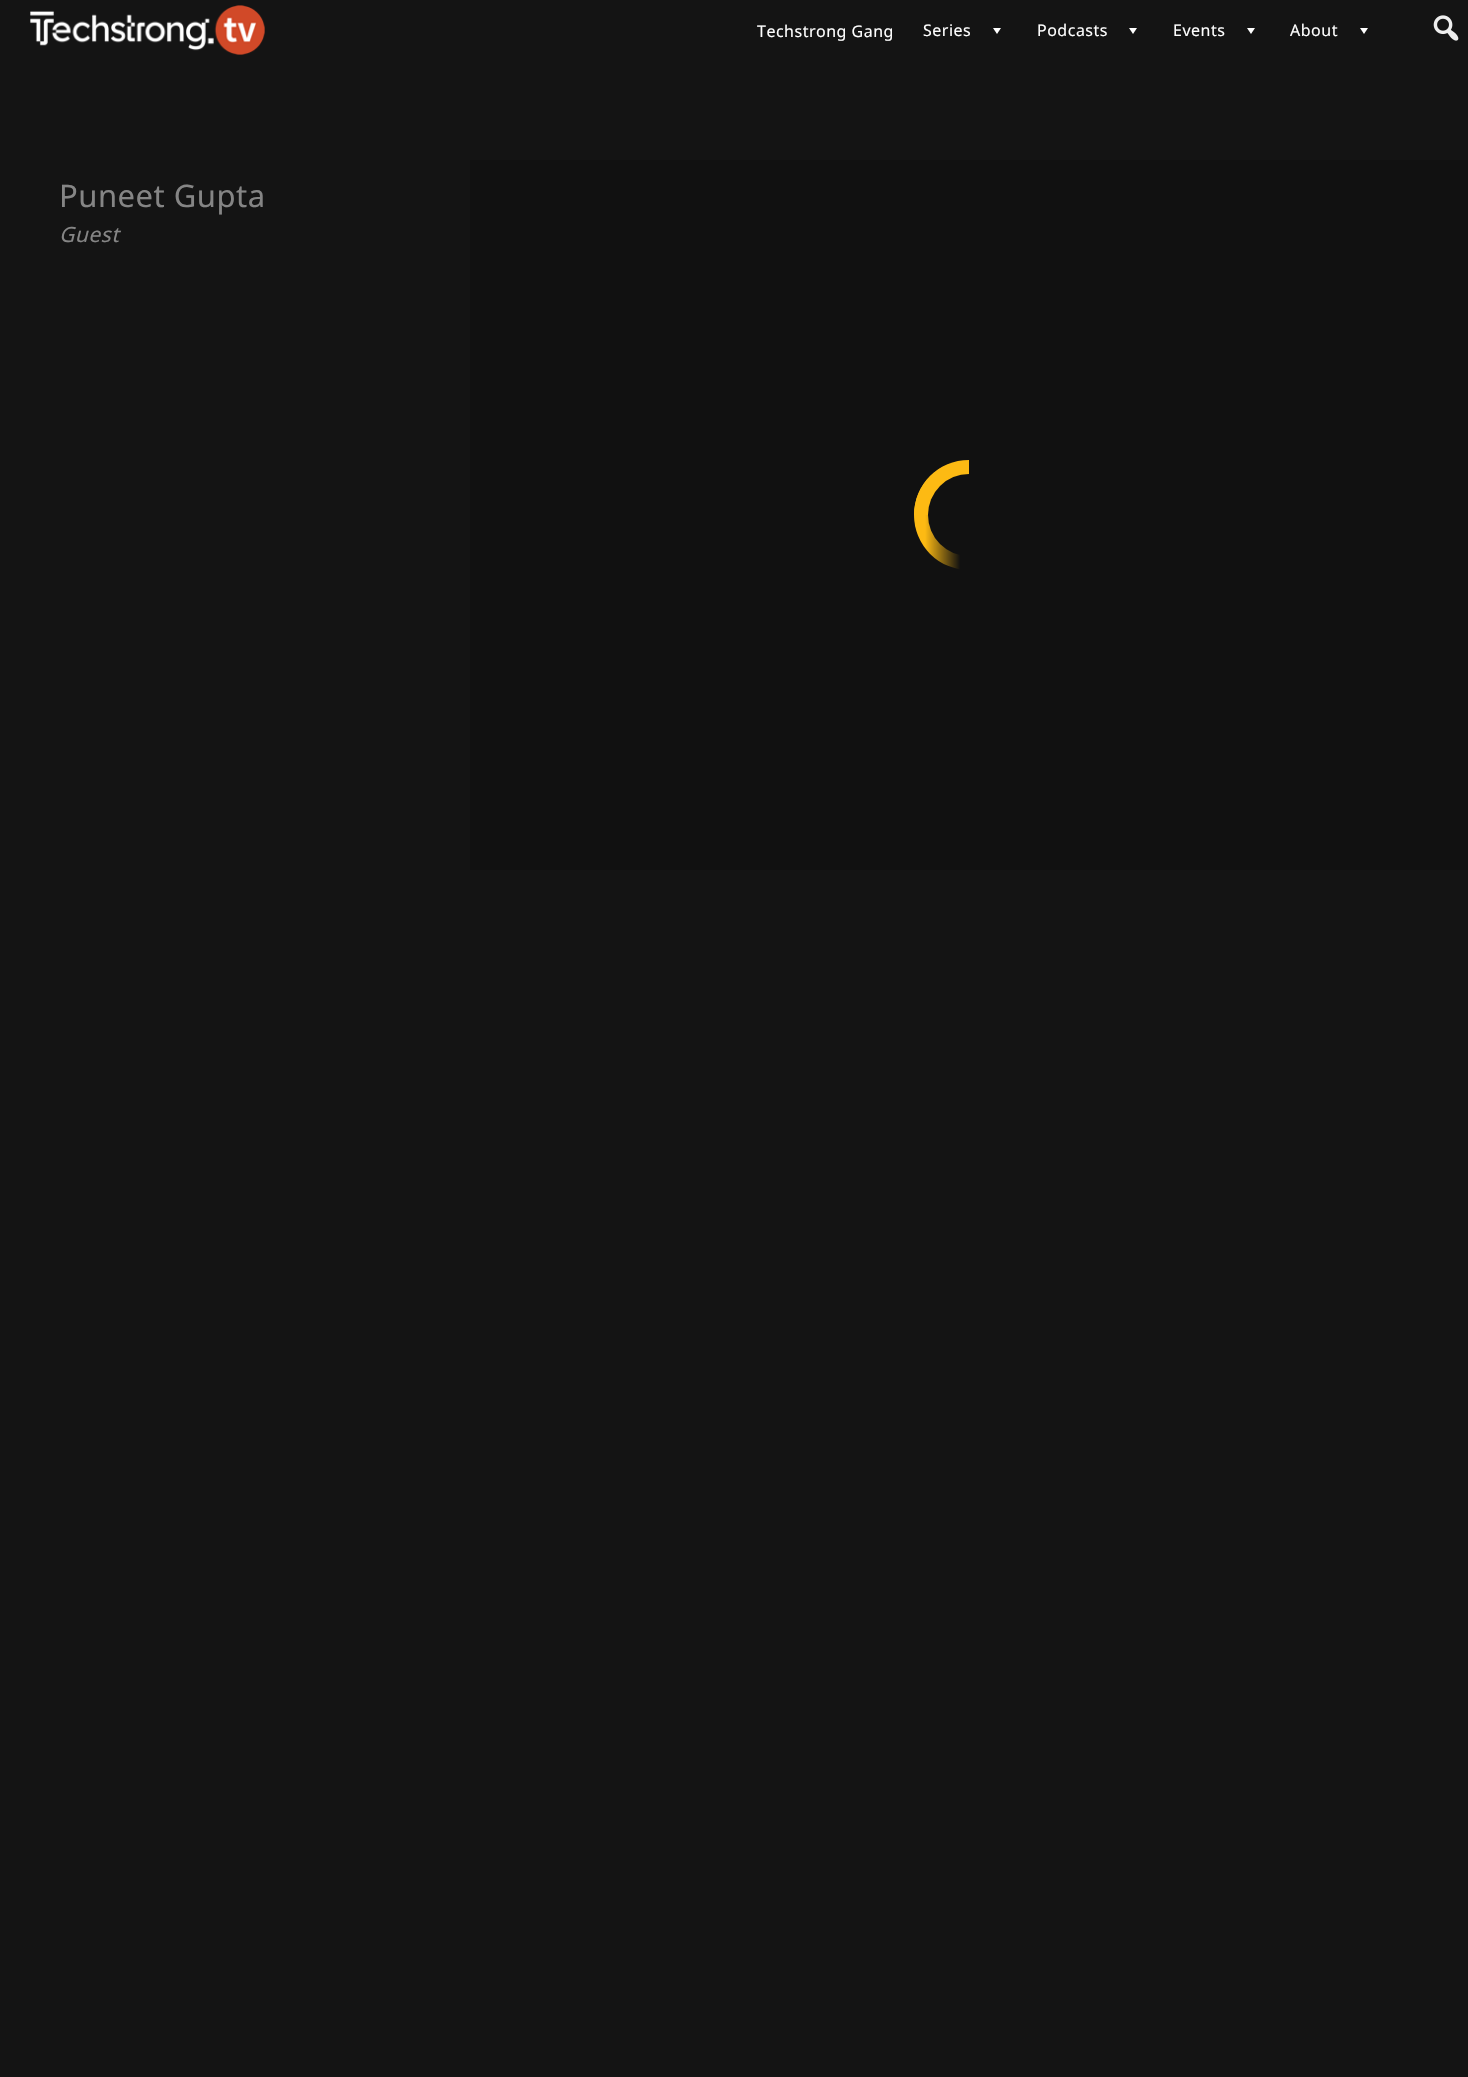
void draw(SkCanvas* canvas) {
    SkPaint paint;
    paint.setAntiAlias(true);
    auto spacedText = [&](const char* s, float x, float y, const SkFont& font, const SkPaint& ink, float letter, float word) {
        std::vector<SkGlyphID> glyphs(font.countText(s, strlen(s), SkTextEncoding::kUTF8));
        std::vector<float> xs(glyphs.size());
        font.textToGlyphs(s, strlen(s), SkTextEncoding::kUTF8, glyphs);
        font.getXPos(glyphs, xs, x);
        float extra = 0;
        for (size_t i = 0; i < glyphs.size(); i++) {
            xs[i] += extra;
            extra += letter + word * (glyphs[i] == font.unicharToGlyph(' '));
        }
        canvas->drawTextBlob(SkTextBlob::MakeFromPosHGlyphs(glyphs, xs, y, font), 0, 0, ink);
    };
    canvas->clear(0xFF141414);
    canvas->drawImageRect(SkImages::DeferredFromEncodedData(SkData::MakeFromFileName("img1.png")), SkRect::MakeXYWH(30, 5, 235, 50), SkSamplingOptions());
    SkFont font1(fontMgr->matchFamilyStyle("Noto Sans", SkFontStyle::Normal()), 16);
    font1.setSubpixel(true);
    paint.setColor(0xFFFFFFFF);
    spacedText("Techstrong Gang", 757, 37, font1, paint, 0.5f, 0);
    spacedText("Series", 923, 36, font1, paint, 0.5f, 0);
    canvas->drawPath(SkPathBuilder().moveTo(1001, 28).lineTo(997, 34).lineTo(993, 28).close().detach(), paint);
    spacedText("Podcasts", 1037, 36, font1, paint, 0.5f, 0);
    canvas->drawPath(SkPathBuilder().moveTo(1137, 28).lineTo(1133, 34).lineTo(1129, 28).close().detach(), paint);
    spacedText("Events", 1173, 36, font1, paint, 0.5f, 0);
    canvas->drawPath(SkPathBuilder().moveTo(1255, 28).lineTo(1251, 34).lineTo(1247, 28).close().detach(), paint);
    spacedText("About", 1290, 36, font1, paint, 0.5f, 0);
    canvas->drawPath(SkPathBuilder().moveTo(1368, 28).lineTo(1364, 34).lineTo(1360, 28).close().detach(), paint);
    canvas->drawImageRect(SkImages::DeferredFromEncodedData(SkData::MakeFromFileName("img2.png")), SkRect::MakeXYWH(1433, 15, 26, 26), SkSamplingOptions());
    SkFont font2(fontMgr->matchFamilyStyle("Noto Sans", SkFontStyle::Normal()), 31);
    font2.setSubpixel(true);
    paint.setColor(0xFF858585);
    spacedText("Puneet Gupta", 59, 207, font2, paint, 0.5f, 0);
    SkFont font3(fontMgr->matchFamilyStyle("Noto Sans", SkFontStyle::Italic()), 21);
    font3.setSubpixel(true);
    spacedText("Guest", 59, 242, font3, paint, 0.5f, 0);
    paint.setColor(0xFF111111);
    canvas->drawRect(SkRect::MakeXYWH(470, 160, 998, 710), paint);
    {
        const SkColor colors[] = {0xFFFDBA13, 0xFF111111};
        const float stops[] = {0.1f, 0.42f};
        const SkPoint ends[] = {{914, 515}, {1024, 515}};
        paint.setShader(SkGradientShader::MakeLinear(ends, colors, stops, 2, SkTileMode::kClamp));
        paint.setAlpha(255);
    }
    canvas->drawCircle(969, 515, 55, paint);
    paint.setShader(nullptr);
    paint.setColor(0xFFFDBA13);
    canvas->drawPath(SkPathBuilder().moveTo(969, 460).lineTo(969, 515).lineTo(914, 515).cubicTo(914, 484.5f, 938.5f, 460, 969, 460).close().detach(), paint);
    paint.setColor(0xFF111111);
    canvas->drawCircle(969, 515, 41, paint);
}
